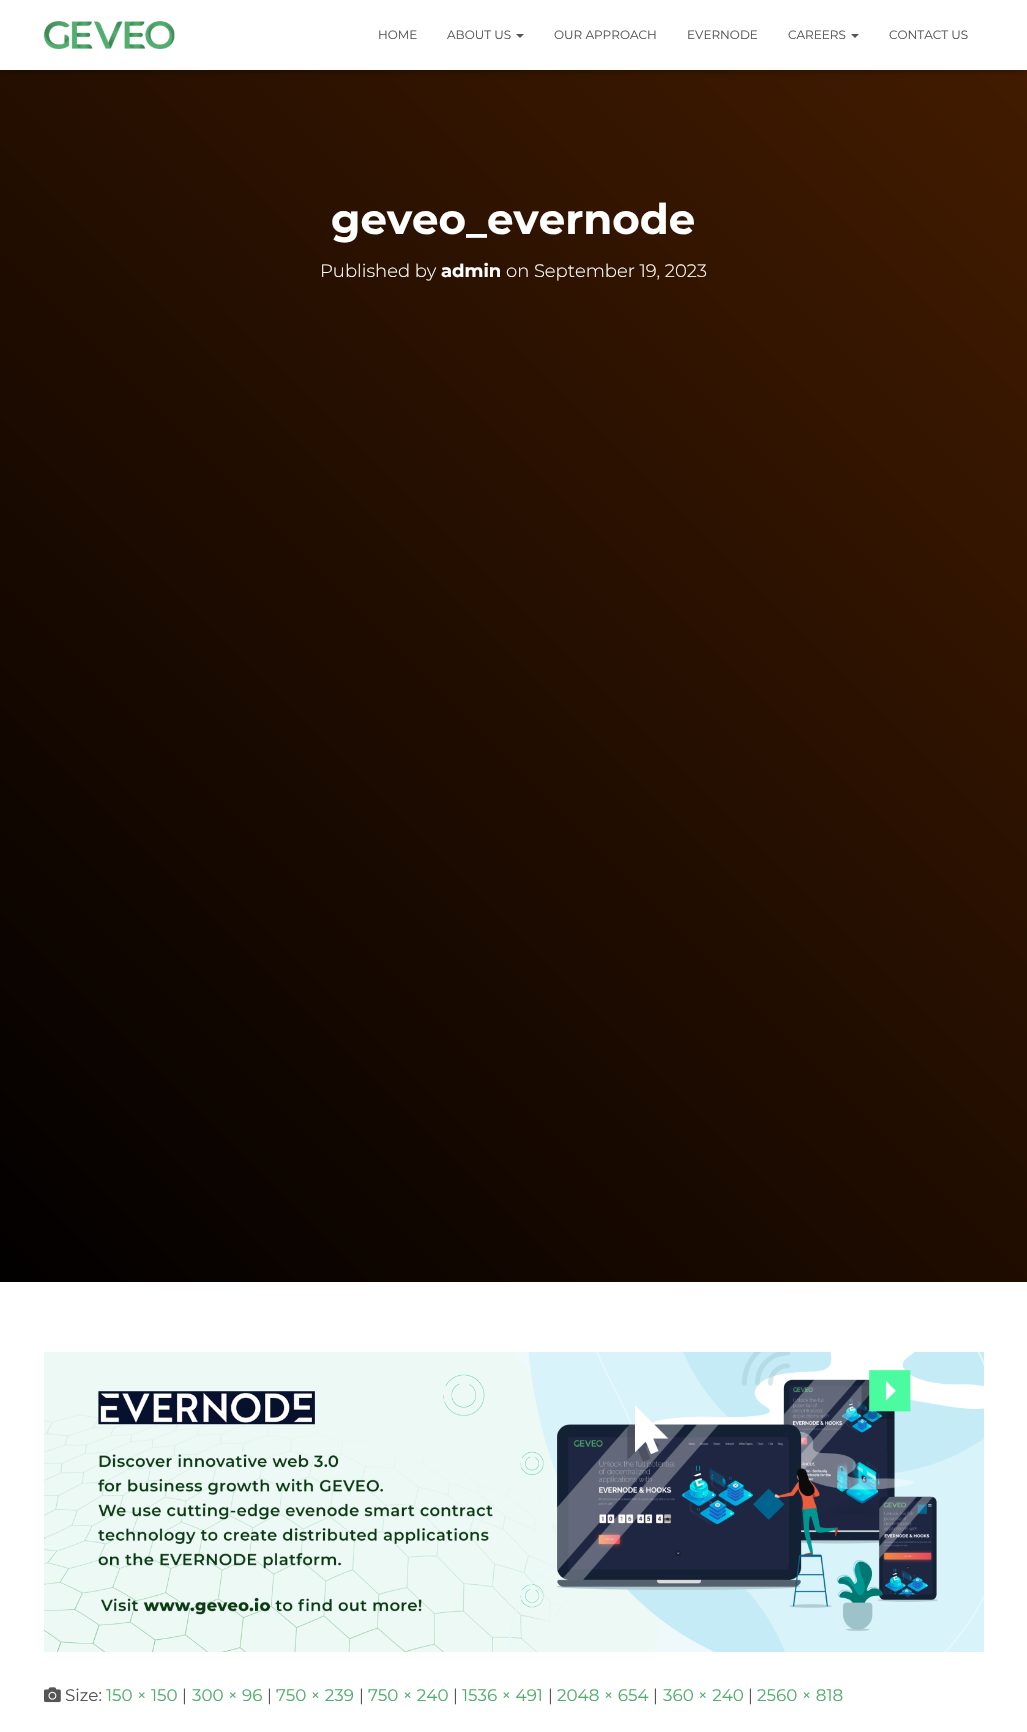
void draw(SkCanvas* canvas) {
    SkPaint paint;
    paint.setAntiAlias(true);
    canvas->clear(0xFFFFFFFF);
    {
        const SkColor colors[] = {0xFF020000, 0xFF441C00};
        const float stops[] = {0, 1};
        const SkPoint ends[] = {{-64, 1218}, {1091, 64}};
        paint.setShader(SkGradientShader::MakeLinear(ends, colors, stops, 2, SkTileMode::kClamp));
        paint.setAlpha(255);
    }
    canvas->drawRect(SkRect::MakeXYWH(0, 70, 1027, 1212), paint);
    paint.setShader(nullptr);
    paint.setColor(0x1A000000);
    paint.setMaskFilter(SkMaskFilter::MakeBlur(kNormal_SkBlurStyle, 2.5f));
    canvas->drawRect(SkRect::MakeXYWH(2, 6, 1023, 66), paint);
    paint.setMaskFilter(nullptr);
    paint.setColor(0x1F000000);
    paint.setMaskFilter(SkMaskFilter::MakeBlur(kNormal_SkBlurStyle, 5));
    canvas->drawRect(SkRect::MakeXYWH(0, 1, 1027, 70), paint);
    paint.setMaskFilter(nullptr);
    paint.setColor(0x6B000000);
    paint.setMaskFilter(SkMaskFilter::MakeBlur(kNormal_SkBlurStyle, 5));
    canvas->drawRect(SkRect::MakeXYWH(6, 7, 1015, 58), paint);
    paint.setMaskFilter(nullptr);
    paint.setColor(0xFFFFFFFF);
    canvas->drawRect(SkRect::MakeXYWH(0, 0, 1027, 70), paint);
    canvas->drawImageRect(SkImages::DeferredFromEncodedData(SkData::MakeFromFileName("img1.png")), SkRect::MakeXYWH(43, 21, 132, 28), SkSamplingOptions());
    SkFont font1(fontMgr->matchFamilyStyle("Montserrat", SkFontStyle::Normal()), 12);
    font1.setSubpixel(true);
    paint.setColor(0xFF555555);
    canvas->drawString("HOME", 378, 39, font1, paint);
    canvas->drawString("ABOUT US", 447, 39, font1, paint);
    canvas->drawPath(SkPathBuilder().moveTo(516, 34).lineTo(524, 34).lineTo(520, 38).close().detach(), paint);
    canvas->drawString("OUR APPROACH", 554, 39, font1, paint);
    canvas->drawString("EVERNODE", 687, 39, font1, paint);
    canvas->drawString("CAREERS", 788, 39, font1, paint);
    canvas->drawPath(SkPathBuilder().moveTo(851, 34).lineTo(859, 34).lineTo(855, 38).close().detach(), paint);
    canvas->drawString("CONTACT US", 889, 39, font1, paint);
    SkFont font2(fontMgr->matchFamilyStyle("Montserrat", SkFontStyle::Bold()), 42);
    font2.setSubpixel(true);
    paint.setColor(0xFFFFFFFF);
    canvas->drawString("geveo_evernode", 331, 234, font2, paint);
    SkFont font3(fontMgr->matchFamilyStyle("Montserrat", SkFontStyle(300, SkFontStyle::kNormal_Width, SkFontStyle::kUpright_Slant)), 18);
    font3.setSubpixel(true);
    canvas->drawString("Published by", 320, 277, font3, paint);
    SkFont font4(fontMgr->matchFamilyStyle("Montserrat", SkFontStyle::Bold()), 18);
    font4.setSubpixel(true);
    canvas->drawString("admin", 441, 277, font4, paint);
    canvas->drawString("on September 19, 2023", 506, 277, font3, paint);
    canvas->drawImageRect(SkImages::DeferredFromEncodedData(SkData::MakeFromFileName("img2.png")), SkRect::MakeXYWH(44, 1352, 940, 300), SkSamplingOptions());
    canvas->drawImageRect(SkImages::DeferredFromEncodedData(SkData::MakeFromFileName("img3.png")), SkRect::MakeXYWH(44, 1687, 17, 16), SkSamplingOptions());
    SkFont font5(fontMgr->matchFamilyStyle("Montserrat", SkFontStyle::Normal()), 16.75f);
    font5.setSubpixel(true);
    paint.setColor(0xFF555555);
    canvas->drawString("Size:", 65, 1701, font5, paint);
    paint.setColor(0xFF53AD6F);
    canvas->drawString("150 × 150", 106, 1701, font5, paint);
    paint.setColor(0xFF555555);
    canvas->drawString("|", 182, 1701, font5, paint);
    paint.setColor(0xFF53AD6F);
    canvas->drawString("300 × 96", 192, 1701, font5, paint);
    paint.setColor(0xFF555555);
    canvas->drawString("|", 267, 1701, font5, paint);
    paint.setColor(0xFF53AD6F);
    canvas->drawString("750 × 239", 276, 1701, font5, paint);
    paint.setColor(0xFF555555);
    canvas->drawString("|", 359, 1701, font5, paint);
    paint.setColor(0xFF53AD6F);
    canvas->drawString("750 × 240", 368, 1701, font5, paint);
    paint.setColor(0xFF555555);
    canvas->drawString("|", 453, 1701, font5, paint);
    paint.setColor(0xFF53AD6F);
    canvas->drawString("1536 × 491", 462, 1701, font5, paint);
    paint.setColor(0xFF555555);
    canvas->drawString("|", 548, 1701, font5, paint);
    paint.setColor(0xFF53AD6F);
    canvas->drawString("2048 × 654", 557, 1701, font5, paint);
    paint.setColor(0xFF555555);
    canvas->drawString("|", 653, 1701, font5, paint);
    paint.setColor(0xFF53AD6F);
    canvas->drawString("360 × 240", 663, 1701, font5, paint);
    paint.setColor(0xFF555555);
    canvas->drawString("|", 748, 1701, font5, paint);
    paint.setColor(0xFF53AD6F);
    canvas->drawString("2560 × 818", 757, 1701, font5, paint);
}
